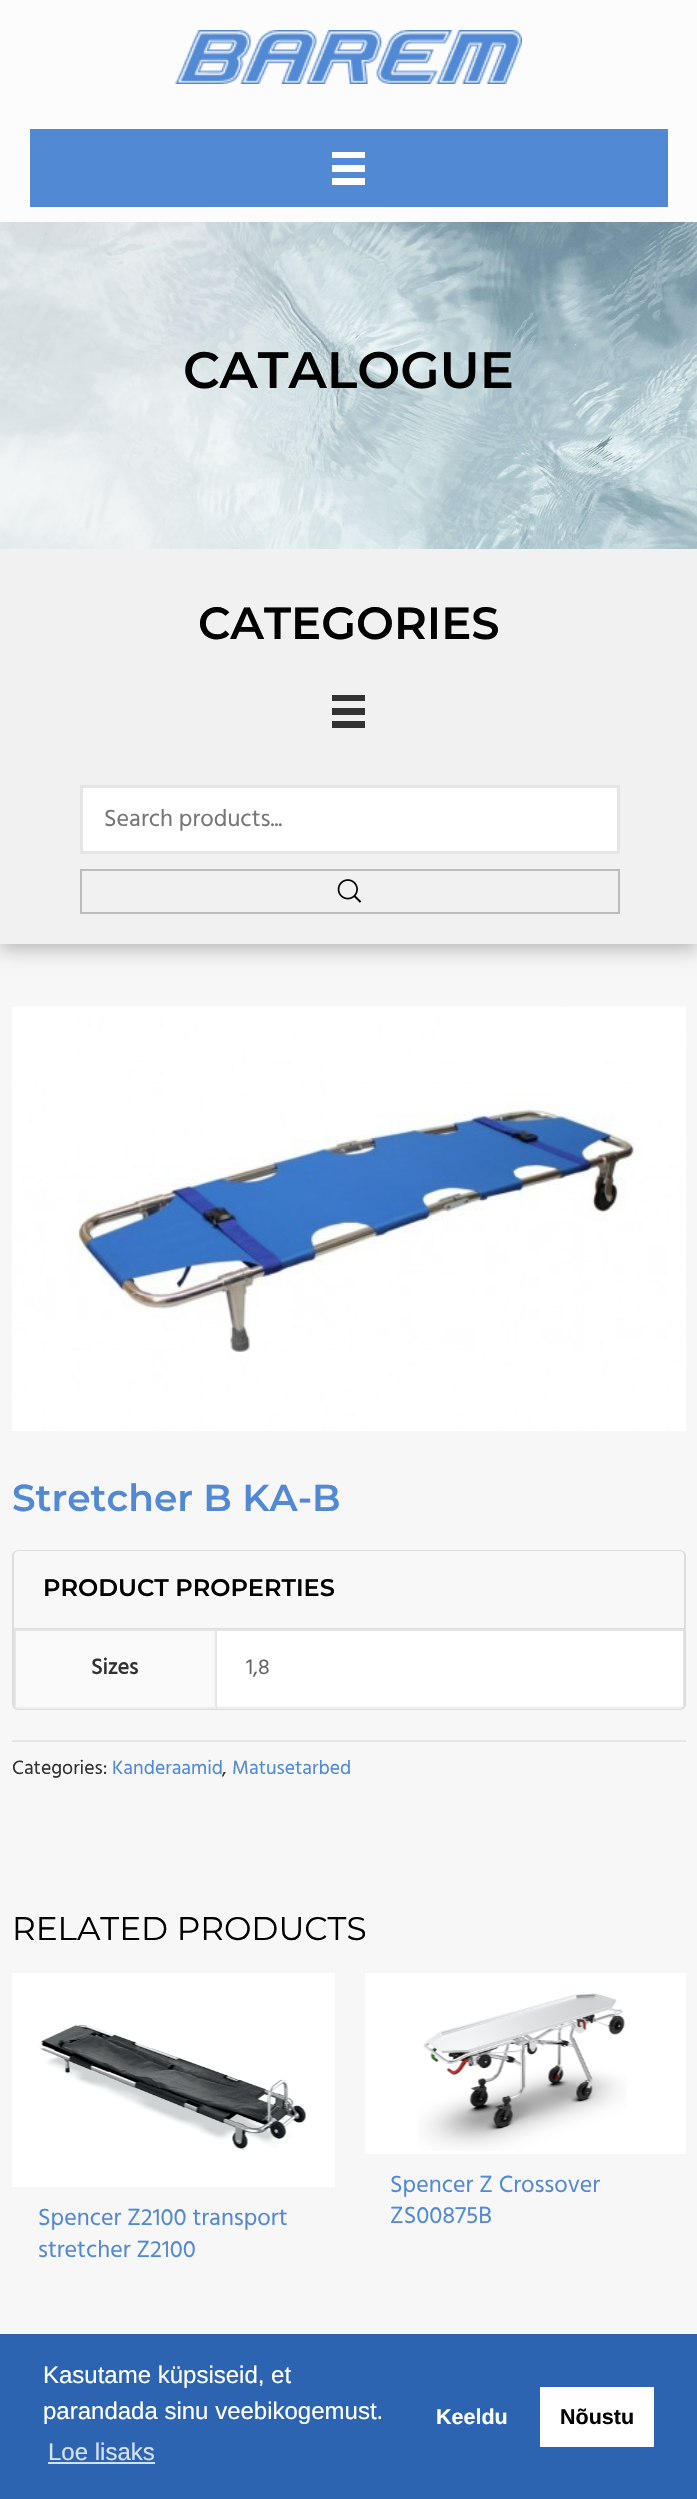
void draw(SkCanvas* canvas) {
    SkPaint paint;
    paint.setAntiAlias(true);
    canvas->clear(0xFFF7F7F7);
    paint.setColor(0xFFFCFCFC);
    canvas->drawRect(SkRect::MakeXYWH(0, 0, 697, 222), paint);
    canvas->drawImageRect(SkImages::DeferredFromEncodedData(SkData::MakeFromFileName("img1.png")), SkRect::MakeXYWH(175, 30, 347, 54), SkSamplingOptions());
    paint.setColor(0xFF5289D5);
    canvas->drawRect(SkRect::MakeXYWH(30, 129, 638, 78), paint);
    paint.setColor(0xFFFFFFFF);
    canvas->drawRect(SkRect::MakeXYWH(332, 152, 33, 6), paint);
    canvas->drawRect(SkRect::MakeXYWH(332, 165, 33, 7), paint);
    canvas->drawRect(SkRect::MakeXYWH(332, 178, 33, 7), paint);
    paint.setColor(0x40000000);
    paint.setMaskFilter(SkMaskFilter::MakeBlur(kNormal_SkBlurStyle, 9));
    canvas->drawRect(SkRect::MakeXYWH(0, 555, 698, 395), paint);
    paint.setMaskFilter(nullptr);
    canvas->drawImageRect(SkImages::DeferredFromEncodedData(SkData::MakeFromFileName("img2.png")), SkRect::MakeXYWH(0, 222, 697, 327), SkSamplingOptions());
    SkFont font1(fontMgr->matchFamilyStyle("Montserrat", SkFontStyle(100, SkFontStyle::kNormal_Width, SkFontStyle::kUpright_Slant)), 51);
    font1.setSubpixel(true);
    paint.setColor(0xFF000000);
    canvas->drawString("CATALOGUE", 183, 388, font1, paint);
    paint.setColor(0xFFF1F1F1);
    canvas->drawRect(SkRect::MakeXYWH(0, 549, 697, 395), paint);
    SkFont font2(fontMgr->matchFamilyStyle("Montserrat", SkFontStyle(100, SkFontStyle::kNormal_Width, SkFontStyle::kUpright_Slant)), 45);
    font2.setSubpixel(true);
    paint.setColor(0xFF000000);
    canvas->drawString("CATEGORIES", 198, 639, font2, paint);
    paint.setColor(0xFF333333);
    canvas->drawRect(SkRect::MakeXYWH(332, 695, 33, 6), paint);
    canvas->drawRect(SkRect::MakeXYWH(332, 708, 33, 7), paint);
    canvas->drawRect(SkRect::MakeXYWH(332, 721, 33, 7), paint);
    paint.setColor(0xFFFFFFFF);
    canvas->drawRect(SkRect::MakeXYWH(81.5f, 786.5f, 537, 66), paint);
    paint.setStyle(SkPaint::kStroke_Style);
    paint.setStrokeWidth(3);
    paint.setColor(0xFFE5E5E5);
    canvas->drawRect(SkRect::MakeXYWH(81.5f, 786.5f, 537, 66), paint);
    SkFont font3(fontMgr->matchFamilyStyle("Hind", SkFontStyle::Normal()), 24);
    font3.setSubpixel(true);
    paint.setStyle(SkPaint::kFill_Style);
    paint.setColor(0xFF757575);
    canvas->drawString("Search products...", 104, 826, font3, paint);
    paint.setStyle(SkPaint::kStroke_Style);
    paint.setStrokeWidth(2);
    paint.setColor(0xFFBCBCBC);
    canvas->drawRect(SkRect::MakeXYWH(81, 870, 538, 43), paint);
    canvas->drawImageRect(SkImages::DeferredFromEncodedData(SkData::MakeFromFileName("img3.png")), SkRect::MakeXYWH(337, 879, 25, 24), SkSamplingOptions());
    paint.setStyle(SkPaint::kFill_Style);
    paint.setColor(0xFFFFFFFF);
    canvas->drawRect(SkRect::MakeXYWH(684, 1007, 2, 424), paint);
    canvas->drawRect(SkRect::MakeXYWH(12, 1007, 2, 424), paint);
    canvas->drawImageRect(SkImages::DeferredFromEncodedData(SkData::MakeFromFileName("img4.png")), SkRect::MakeXYWH(14, 1006, 670, 425), SkSamplingOptions());
    SkFont font4(fontMgr->matchFamilyStyle("Montserrat", SkFontStyle(100, SkFontStyle::kNormal_Width, SkFontStyle::kUpright_Slant)), 37.5f);
    font4.setSubpixel(true);
    paint.setColor(0xFF5289D5);
    canvas->drawString("Stretcher B KA-B", 12, 1511, font4, paint);
    paint.setStyle(SkPaint::kStroke_Style);
    paint.setColor(0xFFDDDDDD);
    canvas->drawRoundRect(SkRect::MakeXYWH(13, 1551, 672, 158), 5, 5, paint);
    paint.setStyle(SkPaint::kFill_Style);
    paint.setColor(0xFFF8F8F8);
    canvas->drawPath(SkPathBuilder().moveTo(19, 1551).lineTo(679, 1551).cubicTo(682, 1551, 684, 1553, 684, 1556).lineTo(684, 1629).lineTo(14, 1629).lineTo(14, 1556).cubicTo(14, 1553, 16, 1551, 19, 1551).close().detach(), paint);
    paint.setColor(0xFFDDDDDD);
    canvas->drawRect(SkRect::MakeXYWH(14, 1628, 670, 1), paint);
    SkFont font5(fontMgr->matchFamilyStyle("Montserrat", SkFontStyle(100, SkFontStyle::kNormal_Width, SkFontStyle::kUpright_Slant)), 24);
    font5.setSubpixel(true);
    paint.setColor(0xFF000000);
    canvas->drawString("PRODUCT PROPERTIES", 43, 1596, font5, paint);
    paint.setColor(0xFFE5E5E5);
    canvas->drawRect(SkRect::MakeXYWH(14, 1629, 670, 2), paint);
    paint.setColor(0xFFFAFAFA);
    canvas->drawRect(SkRect::MakeXYWH(14, 1631, 199, 75), paint);
    canvas->save();
    canvas->clipPath(SkPathBuilder().moveTo(19, 1551).lineTo(679, 1551).cubicTo(682, 1551, 684, 1553, 684, 1556).lineTo(684, 1704).cubicTo(684, 1707, 682, 1709, 679, 1709).lineTo(19, 1709).cubicTo(16, 1709, 14, 1707, 14, 1704).lineTo(14, 1556).cubicTo(14, 1553, 16, 1551, 19, 1551).close().detach(), true);
    paint.setColor(0xFFE5E5E5);
    canvas->drawRect(SkRect::MakeXYWH(14, 1629, 2, 80), paint);
    canvas->drawRect(SkRect::MakeXYWH(683, 1629, 1, 80), paint);
    paint.setColor(0xFFEEEEEE);
    canvas->drawRect(SkRect::MakeXYWH(215, 1707, 469, 2), paint);
    canvas->restore();
    paint.setColor(0xFFE5E5E5);
    canvas->drawRect(SkRect::MakeXYWH(215, 1629, 2, 80), paint);
    canvas->save();
    canvas->clipPath(SkPathBuilder().moveTo(19, 1551).lineTo(679, 1551).cubicTo(682, 1551, 684, 1553, 684, 1556).lineTo(684, 1704).cubicTo(684, 1707, 682, 1709, 679, 1709).lineTo(19, 1709).cubicTo(16, 1709, 14, 1707, 14, 1704).lineTo(14, 1556).cubicTo(14, 1553, 16, 1551, 19, 1551).close().detach(), true);
    paint.setColor(0xFFEEEEEE);
    canvas->drawRect(SkRect::MakeXYWH(14, 1707, 202, 2), paint);
    canvas->restore();
    SkFont font6(fontMgr->matchFamilyStyle("Hind", SkFontStyle::Bold()), 22);
    font6.setSubpixel(true);
    paint.setColor(0xFF313131);
    canvas->drawString("Sizes", 91, 1674, font6, paint);
    paint.setColor(0xFFFFFFFF);
    canvas->drawRect(SkRect::MakeXYWH(217, 1631, 466, 75), paint);
    SkFont font7(fontMgr->matchFamilyStyle("Hind", SkFontStyle::Normal()), 22);
    font7.setSubpixel(true);
    paint.setColor(0xFF666666);
    canvas->drawString("1,8", 246, 1674, font7, paint);
    paint.setColor(0xFFE5E5E5);
    canvas->drawRect(SkRect::MakeXYWH(12, 1740, 674, 2), paint);
    SkFont font8(fontMgr->matchFamilyStyle("Hind", SkFontStyle::Normal()), 19.75f);
    font8.setSubpixel(true);
    paint.setColor(0xFF313131);
    canvas->drawString("Categories:", 12, 1774, font8, paint);
    paint.setColor(0xFF5289D5);
    canvas->drawString("Kanderaamid", 112, 1774, font8, paint);
    paint.setColor(0xFF313131);
    canvas->drawString(",", 222, 1774, font8, paint);
    paint.setColor(0xFF5289D5);
    canvas->drawString("Matusetarbed", 232, 1774, font8, paint);
    SkFont font9(fontMgr->matchFamilyStyle("Montserrat", SkFontStyle::Normal()), 32.75f);
    font9.setSubpixel(true);
    paint.setColor(0xFF000000);
    canvas->drawString("RELATED PRODUCTS", 12, 1940, font9, paint);
    paint.setColor(0xFFFFFFFF);
    canvas->drawRect(SkRect::MakeXYWH(365, 1973, 321, 181), paint);
    canvas->drawImageRect(SkImages::DeferredFromEncodedData(SkData::MakeFromFileName("img5.png")), SkRect::MakeXYWH(418, 1993, 209, 158), SkSamplingOptions());
    paint.setColor(0xFF5289D5);
    canvas->drawString("Spencer Z Crossover", 390, 2192, font3, paint);
    canvas->drawString("ZS00875B", 390, 2223, font3, paint);
    paint.setColor(0xFFFFFFFF);
    canvas->drawRect(SkRect::MakeXYWH(12, 1973, 323, 214), paint);
    canvas->drawImageRect(SkImages::DeferredFromEncodedData(SkData::MakeFromFileName("img6.png")), SkRect::MakeXYWH(39, 2024, 268, 127), SkSamplingOptions());
    paint.setColor(0xFF5289D5);
    canvas->drawString("Spencer Z2100 transport", 38, 2225, font3, paint);
    canvas->drawString("stretcher Z2100", 38, 2257, font3, paint);
    paint.setColor(0xFF2D64B1);
    canvas->drawRect(SkRect::MakeXYWH(0, 2334, 697, 165), paint);
    SkFont font10(fontMgr->matchFamilyStyle("Liberation Sans", SkFontStyle::Normal()), 24);
    font10.setSubpixel(true);
    paint.setColor(0xFFFFFFFF);
    canvas->drawString("Kasutame küpsiseid, et", 43, 2383, font10, paint);
    canvas->drawString("parandada sinu veebikogemust.", 43, 2419, font10, paint);
    paint.setColor(0xFFD5E0EF);
    canvas->drawString("Loe lisaks", 48, 2460, font10, paint);
    canvas->drawRect(SkRect::MakeXYWH(48, 2462, 107, 2), paint);
    SkFont font11(fontMgr->matchFamilyStyle("Liberation Sans", SkFontStyle::Bold()), 21.5f);
    font11.setSubpixel(true);
    paint.setColor(0xFFFFFFFF);
    canvas->drawString("Keeldu", 436, 2424, font11, paint);
    canvas->drawRect(SkRect::MakeXYWH(540, 2387, 114, 60), paint);
    paint.setColor(0xFF000000);
    canvas->drawString("Nõustu", 560, 2424, font11, paint);
}
